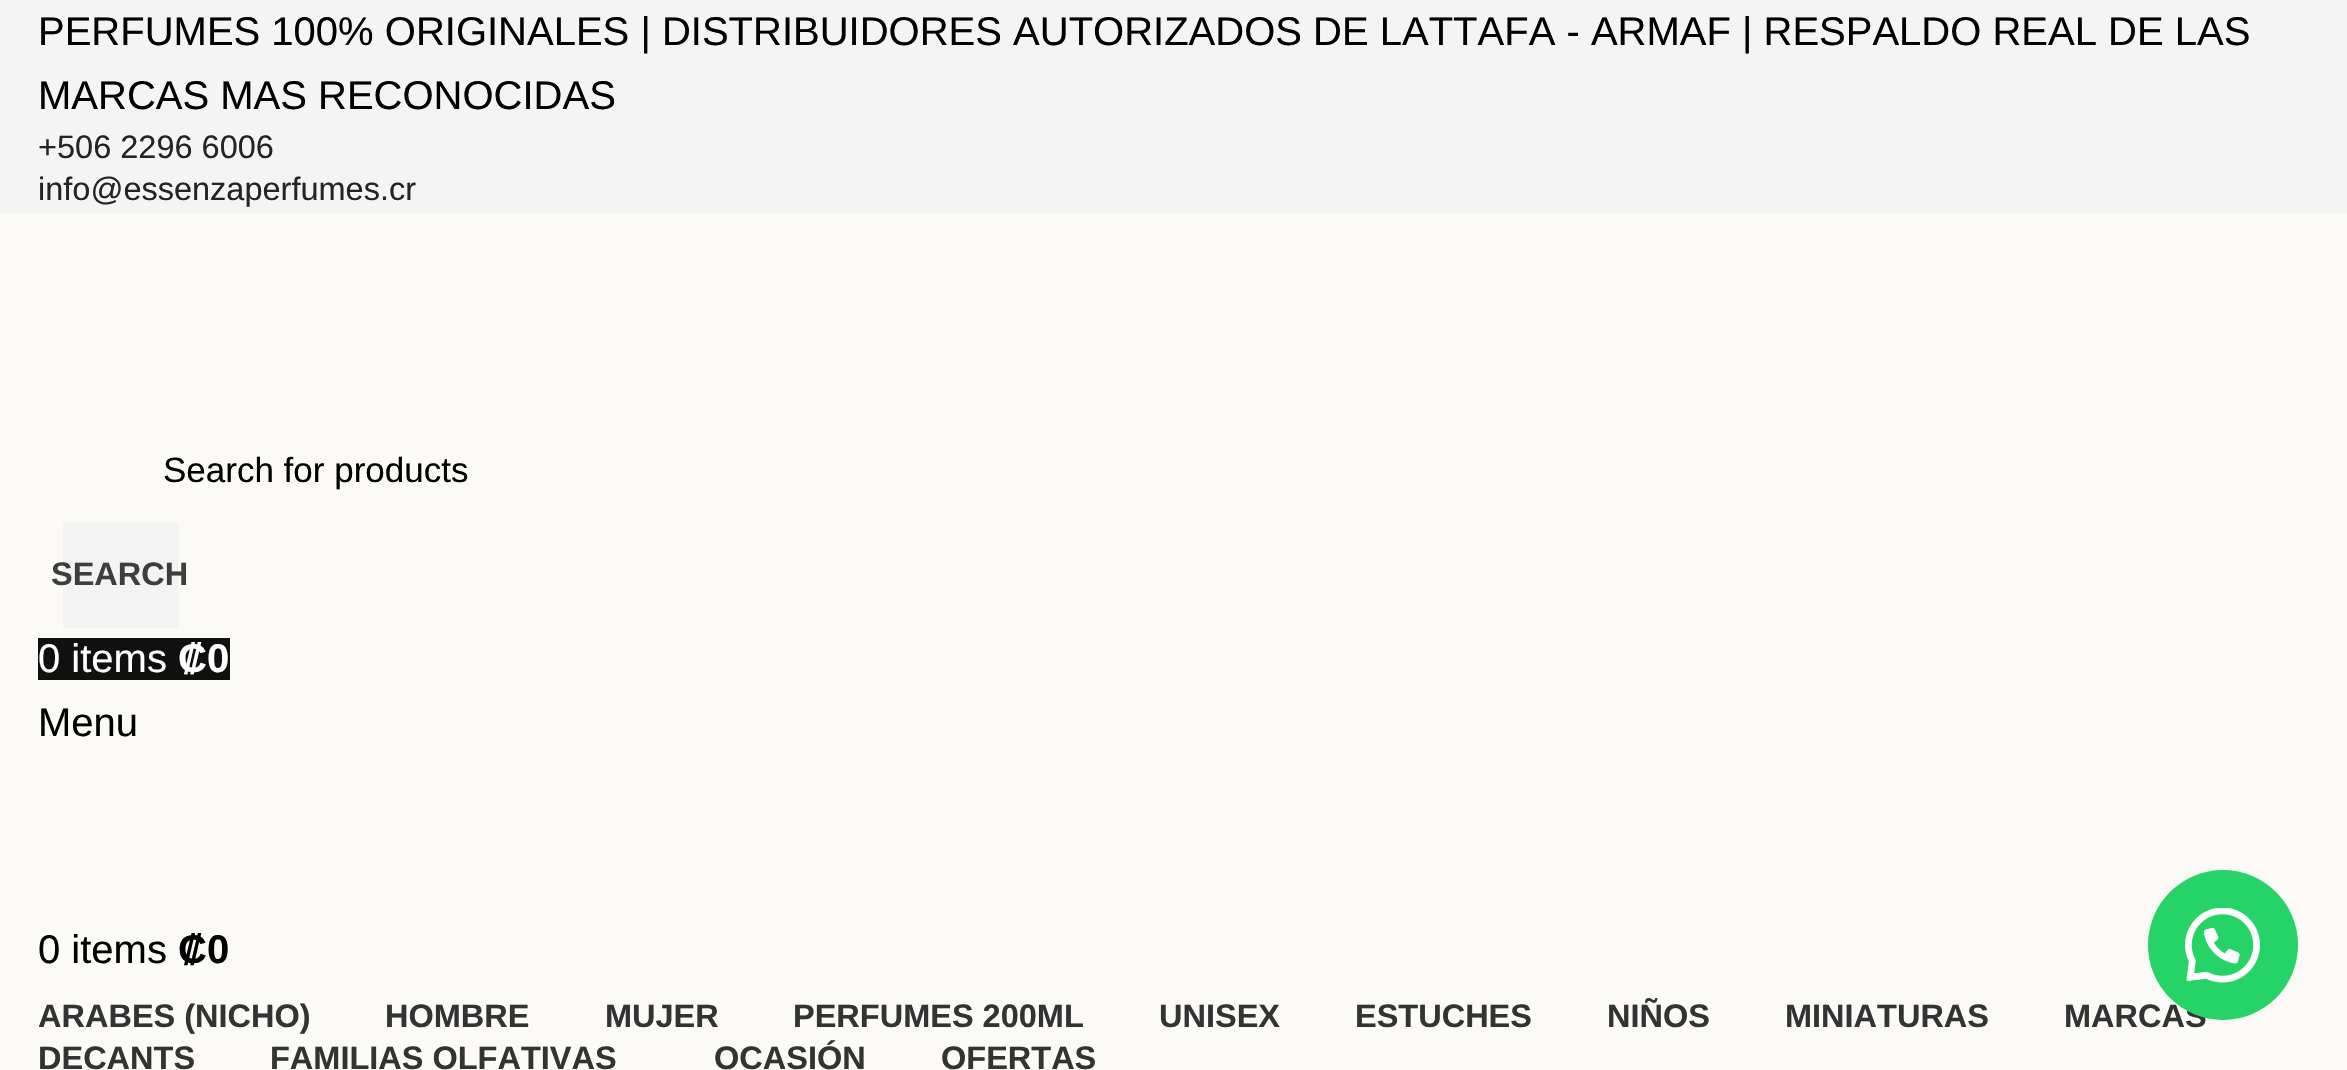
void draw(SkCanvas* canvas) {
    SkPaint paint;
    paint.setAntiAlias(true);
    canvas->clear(0xFFF4F4F4);
    SkFont font1(fontMgr->matchFamilyStyle("Liberation Sans", SkFontStyle::Normal()), 40);
    font1.setSubpixel(true);
    paint.setColor(0xFF000000);
    canvas->drawString("PERFUMES 100% ORIGINALES | DISTRIBUIDORES AUTORIZADOS DE LATTAFA - ARMAF | RESPALDO REAL DE LAS", 38, 45, font1, paint);
    canvas->drawString("MARCAS MAS RECONOCIDAS", 38, 109, font1, paint);
    SkFont font2(fontMgr->matchFamilyStyle("Liberation Sans", SkFontStyle::Normal()), 32.5f);
    font2.setSubpixel(true);
    paint.setColor(0xFF242424);
    canvas->drawString("+506 2296 6006", 38, 158, font2, paint);
    canvas->drawString("info@essenzaperfumes.cr", 38, 200, font2, paint);
    paint.setColor(0xFFFBFAF7);
    canvas->drawRect(SkRect::MakeXYWH(0, 213, 2347, 857), paint);
    SkFont font3(fontMgr->matchFamilyStyle("Liberation Sans", SkFontStyle::Normal()), 35);
    font3.setSubpixel(true);
    paint.setColor(0xFF000000);
    canvas->drawString("Search for products", 163, 482, font3, paint);
    paint.setColor(0xFFF3F3F3);
    canvas->drawRect(SkRect::MakeXYWH(63, 523, 115, 105), paint);
    SkFont font4(fontMgr->matchFamilyStyle("Liberation Sans", SkFontStyle::Bold()), 32.5f);
    font4.setSubpixel(true);
    paint.setColor(0xFF3E3E3E);
    canvas->drawString("SEARCH", 51, 585, font4, paint);
    paint.setColor(0xFF101010);
    canvas->drawRect(SkRect::MakeXYWH(38, 638, 192, 42), paint);
    paint.setColor(0xFFFFFFFF);
    canvas->drawString("0 items", 38, 672, font1, paint);
    SkFont font5(fontMgr->matchFamilyStyle("Liberation Sans", SkFontStyle::Bold()), 40);
    font5.setSubpixel(true);
    canvas->drawString("₡0", 178, 672, font5, paint);
    paint.setColor(0xFF000000);
    canvas->drawString("Menu", 38, 736, font1, paint);
    canvas->drawString("0 items", 38, 963, font1, paint);
    canvas->drawString("₡0", 178, 963, font5, paint);
    paint.setColor(0xFF333333);
    canvas->drawString("ARABES (NICHO)", 38, 1027, font4, paint);
    canvas->drawString("HOMBRE", 385, 1027, font4, paint);
    canvas->drawString("MUJER", 605, 1027, font4, paint);
    canvas->drawString("PERFUMES 200ML", 793, 1027, font4, paint);
    canvas->drawString("UNISEX", 1159, 1027, font4, paint);
    canvas->drawString("ESTUCHES", 1355, 1027, font4, paint);
    canvas->drawString("NIÑOS", 1607, 1027, font4, paint);
    canvas->drawString("MINIATURAS", 1785, 1027, font4, paint);
    canvas->drawString("MARCAS", 2064, 1027, font4, paint);
    canvas->drawString("DECANTS", 38, 1069, font4, paint);
    canvas->drawString("FAMILIAS OLFATIVAS", 270, 1069, font4, paint);
    canvas->drawString("OCASIÓN", 714, 1069, font4, paint);
    canvas->drawString("OFERTAS", 941, 1069, font4, paint);
    paint.setColor(0xFF25D366);
    canvas->drawCircle(2223, 945, 75, paint);
    canvas->drawImageRect(SkImages::DeferredFromEncodedData(SkData::MakeFromFileName("img1.png")), SkRect::MakeXYWH(2185, 908, 75, 75), SkSamplingOptions());
}
